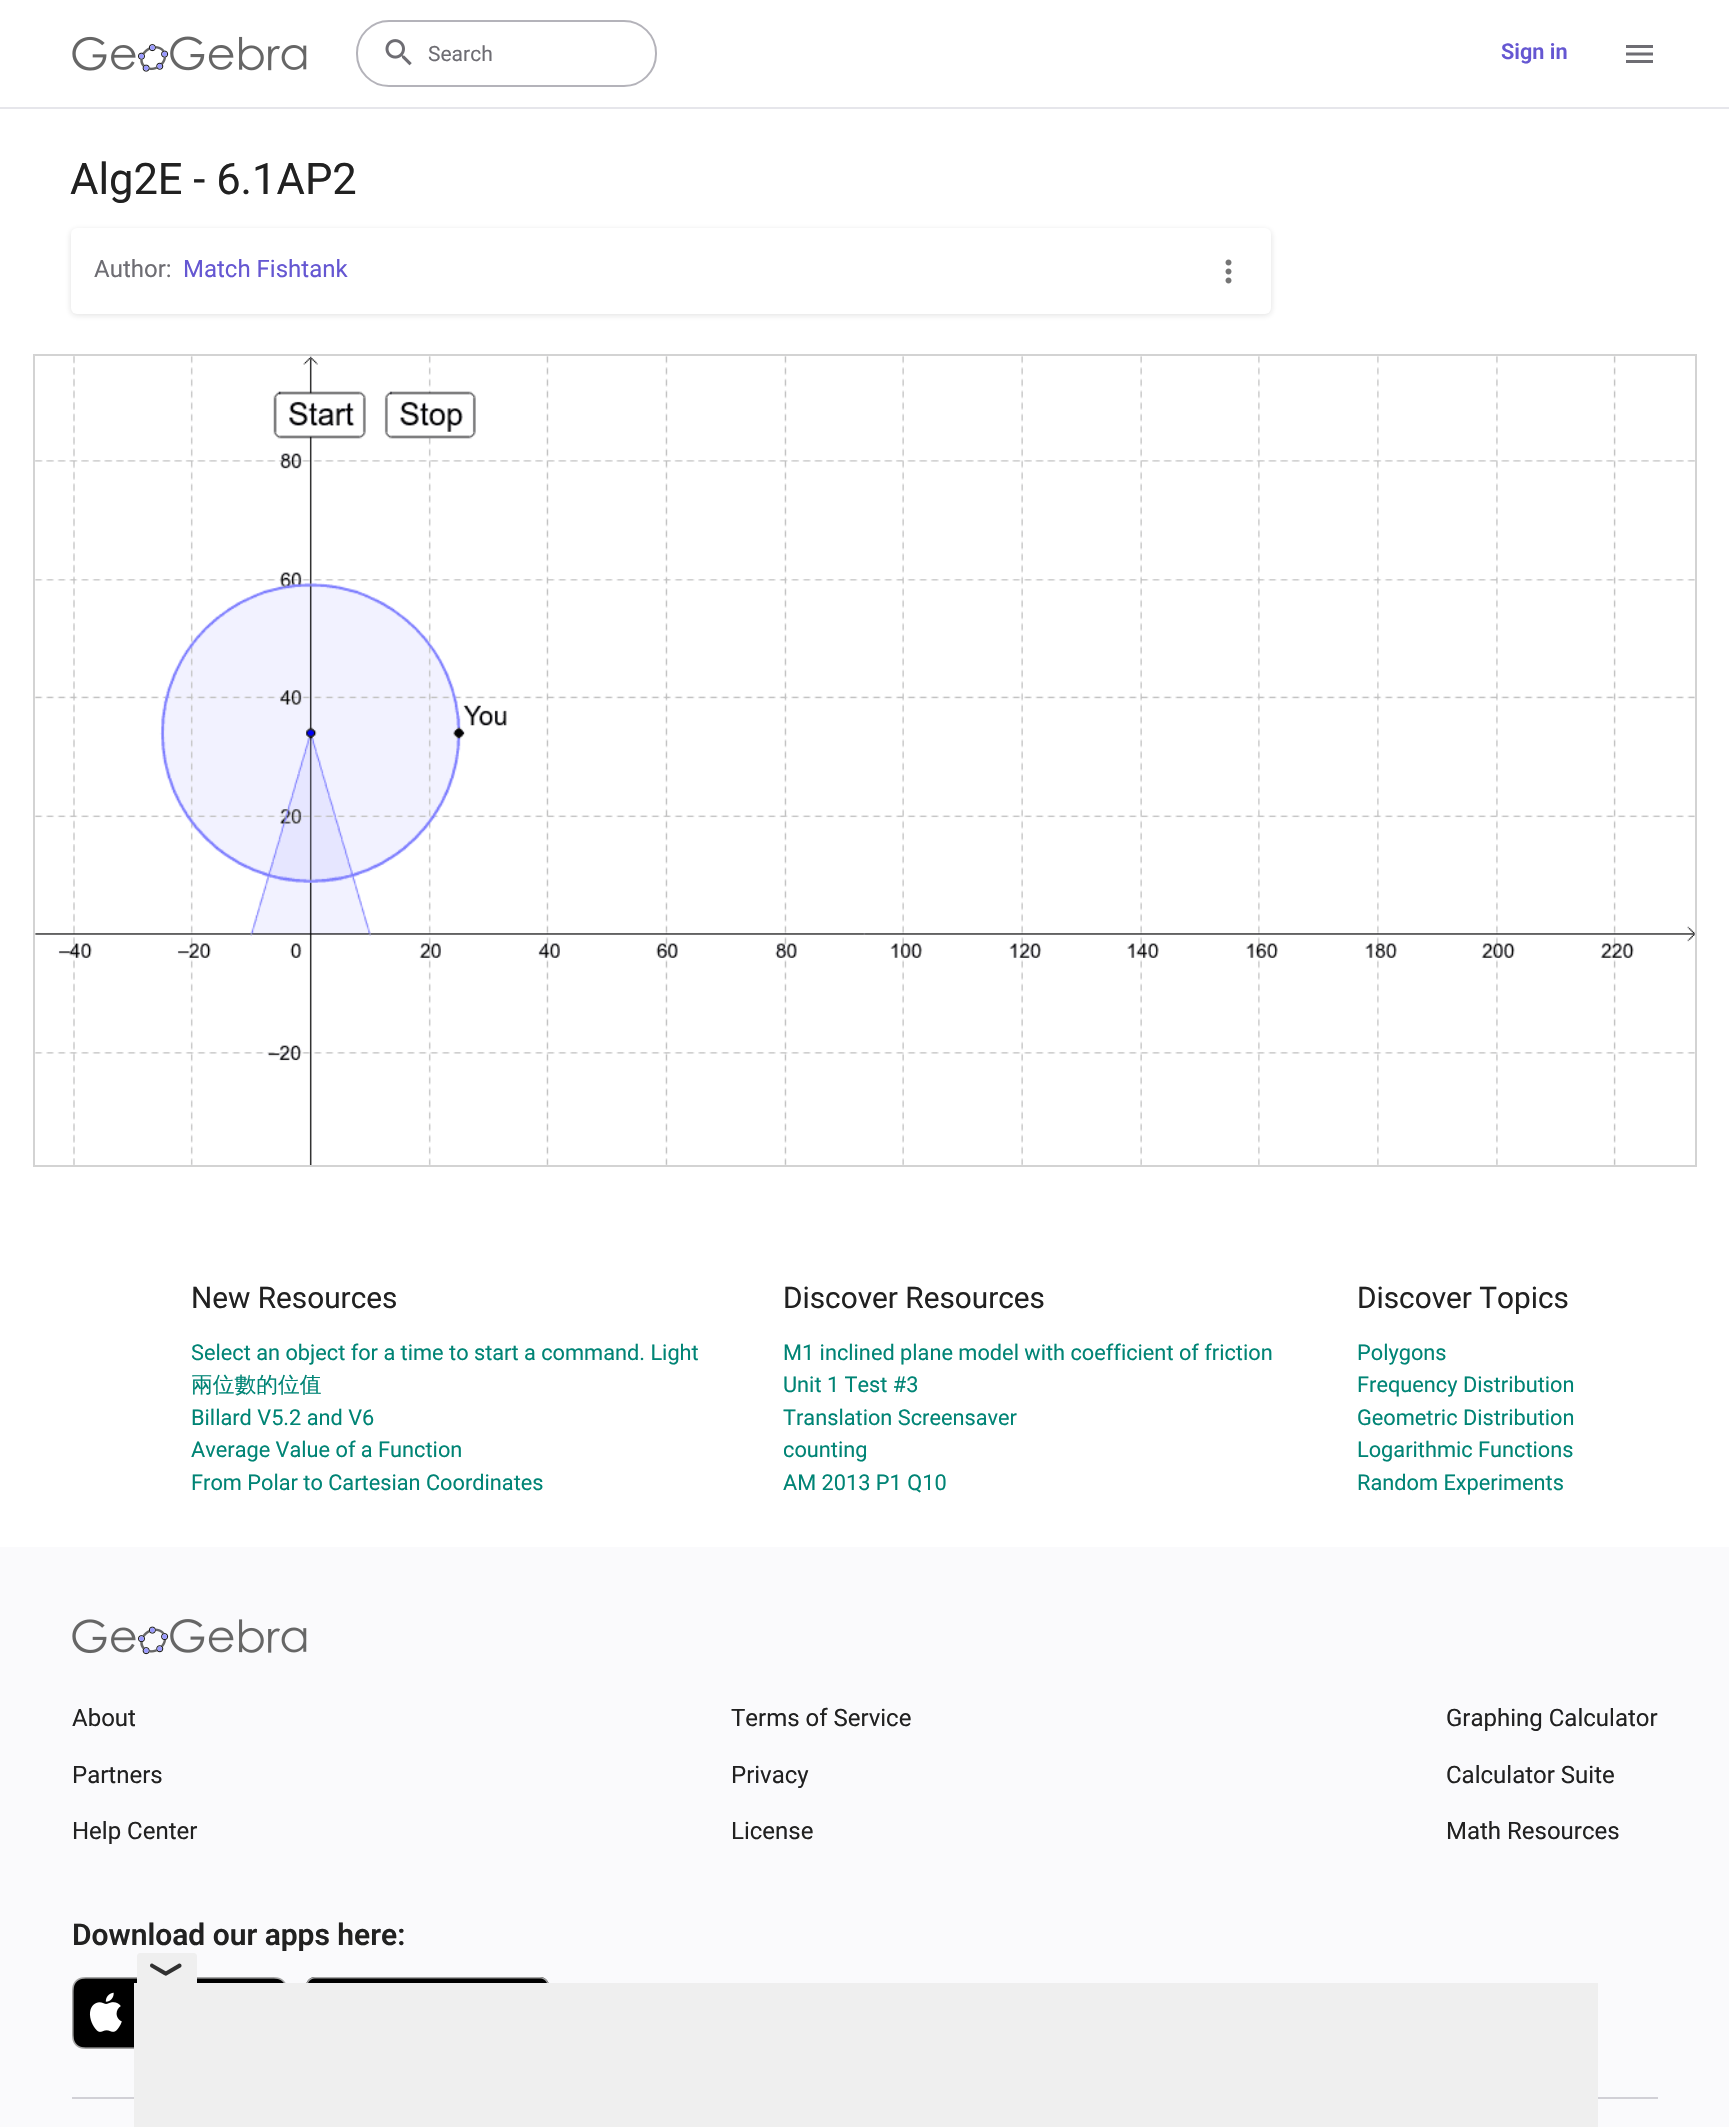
void draw(SkCanvas* canvas) {
    SkPaint paint;
    paint.setAntiAlias(true);
    canvas->clear(0xFFFFFFFF);
    paint.setColor(0xFFE6E6EB);
    canvas->drawRect(SkRect::MakeXYWH(0, 107, 1729, 2), paint);
    canvas->drawImageRect(SkImages::DeferredFromEncodedData(SkData::MakeFromFileName("img1.png")), SkRect::MakeXYWH(72, 36, 235, 36), SkSamplingOptions());
    paint.setStyle(SkPaint::kStroke_Style);
    paint.setStrokeWidth(2);
    paint.setColor(0xFFB4B3BA);
    canvas->drawRoundRect(SkRect::MakeXYWH(357, 21, 299, 65), 32, 32, paint);
    canvas->drawImageRect(SkImages::DeferredFromEncodedData(SkData::MakeFromFileName("img2.png")), SkRect::MakeXYWH(385, 39, 27, 27), SkSamplingOptions());
    SkFont font1(fontMgr->matchFamilyStyle("Roboto", SkFontStyle::Normal()), 21);
    font1.setSubpixel(true);
    paint.setStyle(SkPaint::kFill_Style);
    paint.setColor(0xFF6E6D73);
    canvas->drawString("Search", 428, 61, font1, paint);
    SkFont font2(fontMgr->matchFamilyStyle("Roboto", SkFontStyle(600, SkFontStyle::kNormal_Width, SkFontStyle::kUpright_Slant)), 21.75f);
    font2.setSubpixel(true);
    paint.setColor(0xFF6557D2);
    canvas->drawString("Sign in", 1501, 59, font2, paint);
    canvas->drawImageRect(SkImages::DeferredFromEncodedData(SkData::MakeFromFileName("img3.png")), SkRect::MakeXYWH(1626, 45, 27, 18), SkSamplingOptions());
    SkFont font3(fontMgr->matchFamilyStyle("Roboto", SkFontStyle::Normal()), 43.5f);
    font3.setSubpixel(true);
    paint.setColor(0xFF212121);
    canvas->drawString("Alg2E - 6.1AP2", 70, 194, font3, paint);
    paint.setColor(0x241C1C1F);
    paint.setMaskFilter(SkMaskFilter::MakeBlur(kNormal_SkBlurStyle, 3));
    canvas->drawRoundRect(SkRect::MakeXYWH(71, 230, 1200, 85), 6, 6, paint);
    paint.setMaskFilter(nullptr);
    paint.setColor(0xFFFFFFFF);
    canvas->drawRoundRect(SkRect::MakeXYWH(71, 228, 1200, 86), 6, 6, paint);
    SkFont font4(fontMgr->matchFamilyStyle("Roboto", SkFontStyle::Normal()), 24);
    font4.setSubpixel(true);
    paint.setColor(0xFF6E6D73);
    canvas->drawString("Author:", 94, 277, font4, paint);
    paint.setColor(0xFF6557D2);
    canvas->drawString("Match Fishtank", 183, 277, font4, paint);
    canvas->drawImageRect(SkImages::DeferredFromEncodedData(SkData::MakeFromFileName("img4.png")), SkRect::MakeXYWH(1225, 259, 7, 25), SkSamplingOptions());
    canvas->drawImageRect(SkImages::DeferredFromEncodedData(SkData::MakeFromFileName("img5.png")), SkRect::MakeXYWH(35, 356, 1660, 809), SkSamplingOptions());
    paint.setStyle(SkPaint::kStroke_Style);
    paint.setColor(0xFFD3D3D3);
    canvas->drawRect(SkRect::MakeXYWH(34, 355, 1662, 811), paint);
    SkFont font5(fontMgr->matchFamilyStyle("Roboto", SkFontStyle::Normal()), 29.75f);
    font5.setSubpixel(true);
    paint.setStyle(SkPaint::kFill_Style);
    paint.setColor(0xFF212121);
    canvas->drawString("New Resources", 191, 1308, font5, paint);
    SkFont font6(fontMgr->matchFamilyStyle("Roboto", SkFontStyle::Normal()), 21.75f);
    font6.setSubpixel(true);
    paint.setColor(0xFF008475);
    canvas->drawString("Select an object for a time to start a command. Light", 191, 1360, font6, paint);
    SkFont font7(fontMgr->matchFamilyStyle("WenQuanYi Zen Hei", SkFontStyle(500, SkFontStyle::kNormal_Width, SkFontStyle::kUpright_Slant)), 21.75f);
    font7.setSubpixel(true);
    canvas->drawString("兩位數的位值", 191, 1392, font7, paint);
    canvas->drawString("Billard V5.2 and V6", 191, 1425, font6, paint);
    canvas->drawString("Average Value of a Function", 191, 1457, font6, paint);
    canvas->drawString("From Polar to Cartesian Coordinates", 191, 1490, font6, paint);
    paint.setColor(0xFF212121);
    canvas->drawString("Discover Resources", 783, 1308, font5, paint);
    paint.setColor(0xFF008475);
    canvas->drawString("M1 inclined plane model with coefficient of friction", 783, 1360, font6, paint);
    canvas->drawString("Unit 1 Test #3", 783, 1392, font6, paint);
    canvas->drawString("Translation Screensaver", 783, 1425, font6, paint);
    canvas->drawString("counting", 783, 1457, font6, paint);
    canvas->drawString("AM 2013 P1 Q10", 783, 1490, font6, paint);
    paint.setColor(0xFF212121);
    canvas->drawString("Discover Topics", 1357, 1308, font5, paint);
    paint.setColor(0xFF008475);
    canvas->drawString("Polygons", 1357, 1360, font6, paint);
    canvas->drawString("Frequency Distribution", 1357, 1392, font6, paint);
    canvas->drawString("Geometric Distribution", 1357, 1425, font6, paint);
    canvas->drawString("Logarithmic Functions", 1357, 1457, font6, paint);
    canvas->drawString("Random Experiments", 1357, 1490, font6, paint);
    paint.setColor(0xFFFAFAFC);
    canvas->drawRect(SkRect::MakeXYWH(0, 1547, 1729, 580), paint);
    canvas->drawImageRect(SkImages::DeferredFromEncodedData(SkData::MakeFromFileName("img6.png")), SkRect::MakeXYWH(72, 1619, 235, 36), SkSamplingOptions());
    paint.setColor(0xFF212121);
    canvas->drawString("About", 72, 1726, font4, paint);
    canvas->drawString("Partners", 72, 1783, font4, paint);
    canvas->drawString("Help Center", 72, 1839, font4, paint);
    canvas->drawString("Terms of Service", 731, 1726, font4, paint);
    canvas->drawString("Privacy", 731, 1783, font4, paint);
    canvas->drawString("License", 731, 1839, font4, paint);
    canvas->drawString("Graphing Calculator", 1446, 1726, font4, paint);
    canvas->drawString("Calculator Suite", 1446, 1783, font4, paint);
    canvas->drawString("Math Resources", 1446, 1839, font4, paint);
    SkFont font8(fontMgr->matchFamilyStyle("Roboto", SkFontStyle(600, SkFontStyle::kNormal_Width, SkFontStyle::kUpright_Slant)), 30);
    font8.setSubpixel(true);
    canvas->drawString("Download our apps here:", 72, 1945, font8, paint);
    canvas->drawImageRect(SkImages::DeferredFromEncodedData(SkData::MakeFromFileName("img7.png")), SkRect::MakeXYWH(72, 1977, 214, 72), SkSamplingOptions());
    canvas->drawImageRect(SkImages::DeferredFromEncodedData(SkData::MakeFromFileName("img8.png")), SkRect::MakeXYWH(306, 1977, 243, 6), SkSamplingOptions());
    paint.setColor(0xFFD1D0D6);
    canvas->drawRect(SkRect::MakeXYWH(72, 2097, 1586, 2), paint);
    paint.setColor(0xFFEFEFEF);
    canvas->drawPath(SkPathBuilder().moveTo(140, 1953).lineTo(194, 1953).cubicTo(195.5f, 1953, 197, 1954.5f, 197, 1956).lineTo(197, 1983).lineTo(137, 1983).lineTo(137, 1956).cubicTo(137, 1954.5f, 138.5f, 1953, 140, 1953).close().detach(), paint);
    paint.setColor(0xFF313131);
    canvas->drawPath(SkPathBuilder().moveTo(153, 1964).lineTo(167, 1972).cubicTo(168.5f, 1974, 166, 1976.5f, 164, 1975).lineTo(150.5f, 1967).cubicTo(149, 1965, 151, 1962.5f, 153, 1964).close().detach(), paint);
    canvas->drawPath(SkPathBuilder().moveTo(165.5f, 1971.5f).lineTo(179, 1963.5f).cubicTo(181.5f, 1963, 182.5f, 1966.5f, 180.5f, 1967.5f).lineTo(166.5f, 1975.5f).cubicTo(164.5f, 1976, 163, 1972.5f, 165.5f, 1971.5f).close().detach(), paint);
    paint.setColor(0xFFEFEFEF);
    canvas->drawRect(SkRect::MakeXYWH(134, 1983, 1464, 144), paint);
}
